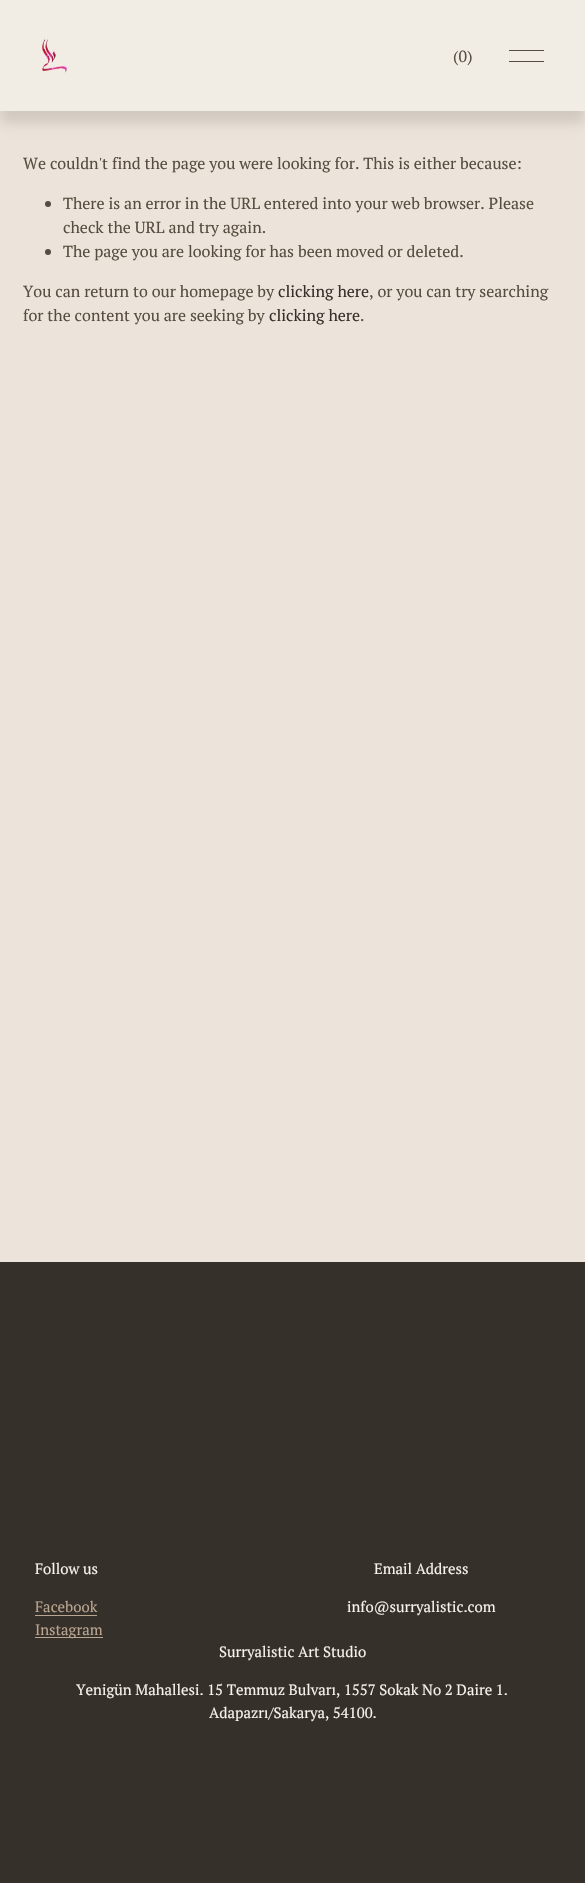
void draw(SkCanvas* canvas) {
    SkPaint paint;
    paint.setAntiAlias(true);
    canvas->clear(0xFFECE4DA);
    paint.setColor(0xFFD1C9C0);
    paint.setMaskFilter(SkMaskFilter::MakeBlur(kNormal_SkBlurStyle, 6));
    canvas->drawRect(SkRect::MakeXYWH(0, 12, 585, 111), paint);
    paint.setMaskFilter(nullptr);
    paint.setColor(0xFFF2EDE4);
    canvas->drawRect(SkRect::MakeXYWH(0, 0, 585, 111), paint);
    canvas->drawImageRect(SkImages::DeferredFromEncodedData(SkData::MakeFromFileName("img1.png")), SkRect::MakeXYWH(42, 38, 25, 36), SkSamplingOptions());
    SkFont font1(fontMgr->matchFamilyStyle("PT Serif", SkFontStyle::Normal()), 16);
    font1.setSubpixel(true);
    paint.setColor(0xFF574C3F);
    canvas->drawString("(0)", 453, 62, font1, paint);
    canvas->drawRect(SkRect::MakeXYWH(509, 50, 35, 1), paint);
    canvas->drawRect(SkRect::MakeXYWH(509, 61, 35, 1), paint);
    canvas->drawString("We couldn't find the page you were looking for. This is either because:", 23, 169, font1, paint);
    canvas->drawCircle(48, 204, 3, paint);
    canvas->drawString("There is an error in the URL entered into your web browser. Please", 63, 209, font1, paint);
    canvas->drawString("check the URL and try again.", 63, 233, font1, paint);
    canvas->drawCircle(48, 252, 3, paint);
    canvas->drawString("The page you are looking for has been moved or deleted.", 63, 257, font1, paint);
    canvas->drawString("You can return to our homepage by", 23, 297, font1, paint);
    paint.setColor(0xFF36302A);
    canvas->drawString("clicking here", 278, 297, font1, paint);
    paint.setColor(0xFF574C3F);
    canvas->drawString(", or you can try searching", 369, 297, font1, paint);
    canvas->drawString("for the content you are seeking by", 23, 321, font1, paint);
    paint.setColor(0xFF36302A);
    canvas->drawString("clicking here", 269, 321, font1, paint);
    paint.setColor(0xFF574C3F);
    canvas->drawString(".", 360, 321, font1, paint);
    paint.setColor(0xFF36302A);
    canvas->drawRect(SkRect::MakeXYWH(0, 1262, 585, 621), paint);
    SkFont font2(fontMgr->matchFamilyStyle("PT Serif", SkFontStyle::Normal()), 14.9f);
    font2.setSubpixel(true);
    paint.setColor(0xFFF6F3EC);
    canvas->drawString("Follow us", 35, 1574, font2, paint);
    paint.setColor(0xFFB9A590);
    canvas->drawString("Facebook", 35, 1612, font2, paint);
    canvas->drawRect(SkRect::MakeXYWH(35, 1615, 62, 1), paint);
    canvas->drawRect(SkRect::MakeXYWH(35, 1637, 68, 1), paint);
    canvas->drawString("Instagram", 35, 1635, font2, paint);
    paint.setColor(0xFFF6F3EC);
    canvas->drawString("Email Address", 374, 1574, font2, paint);
    canvas->drawString("info@surryalistic.com", 347, 1612, font2, paint);
    canvas->drawString("Surryalistic Art Studio", 219, 1657, font2, paint);
    canvas->drawString("Yenigün Mahallesi. 15 Temmuz Bulvarı, 1557 Sokak No 2 Daire 1.", 76, 1695, font2, paint);
    canvas->drawString("Adapazrı/Sakarya, 54100.", 209, 1718, font2, paint);
}
